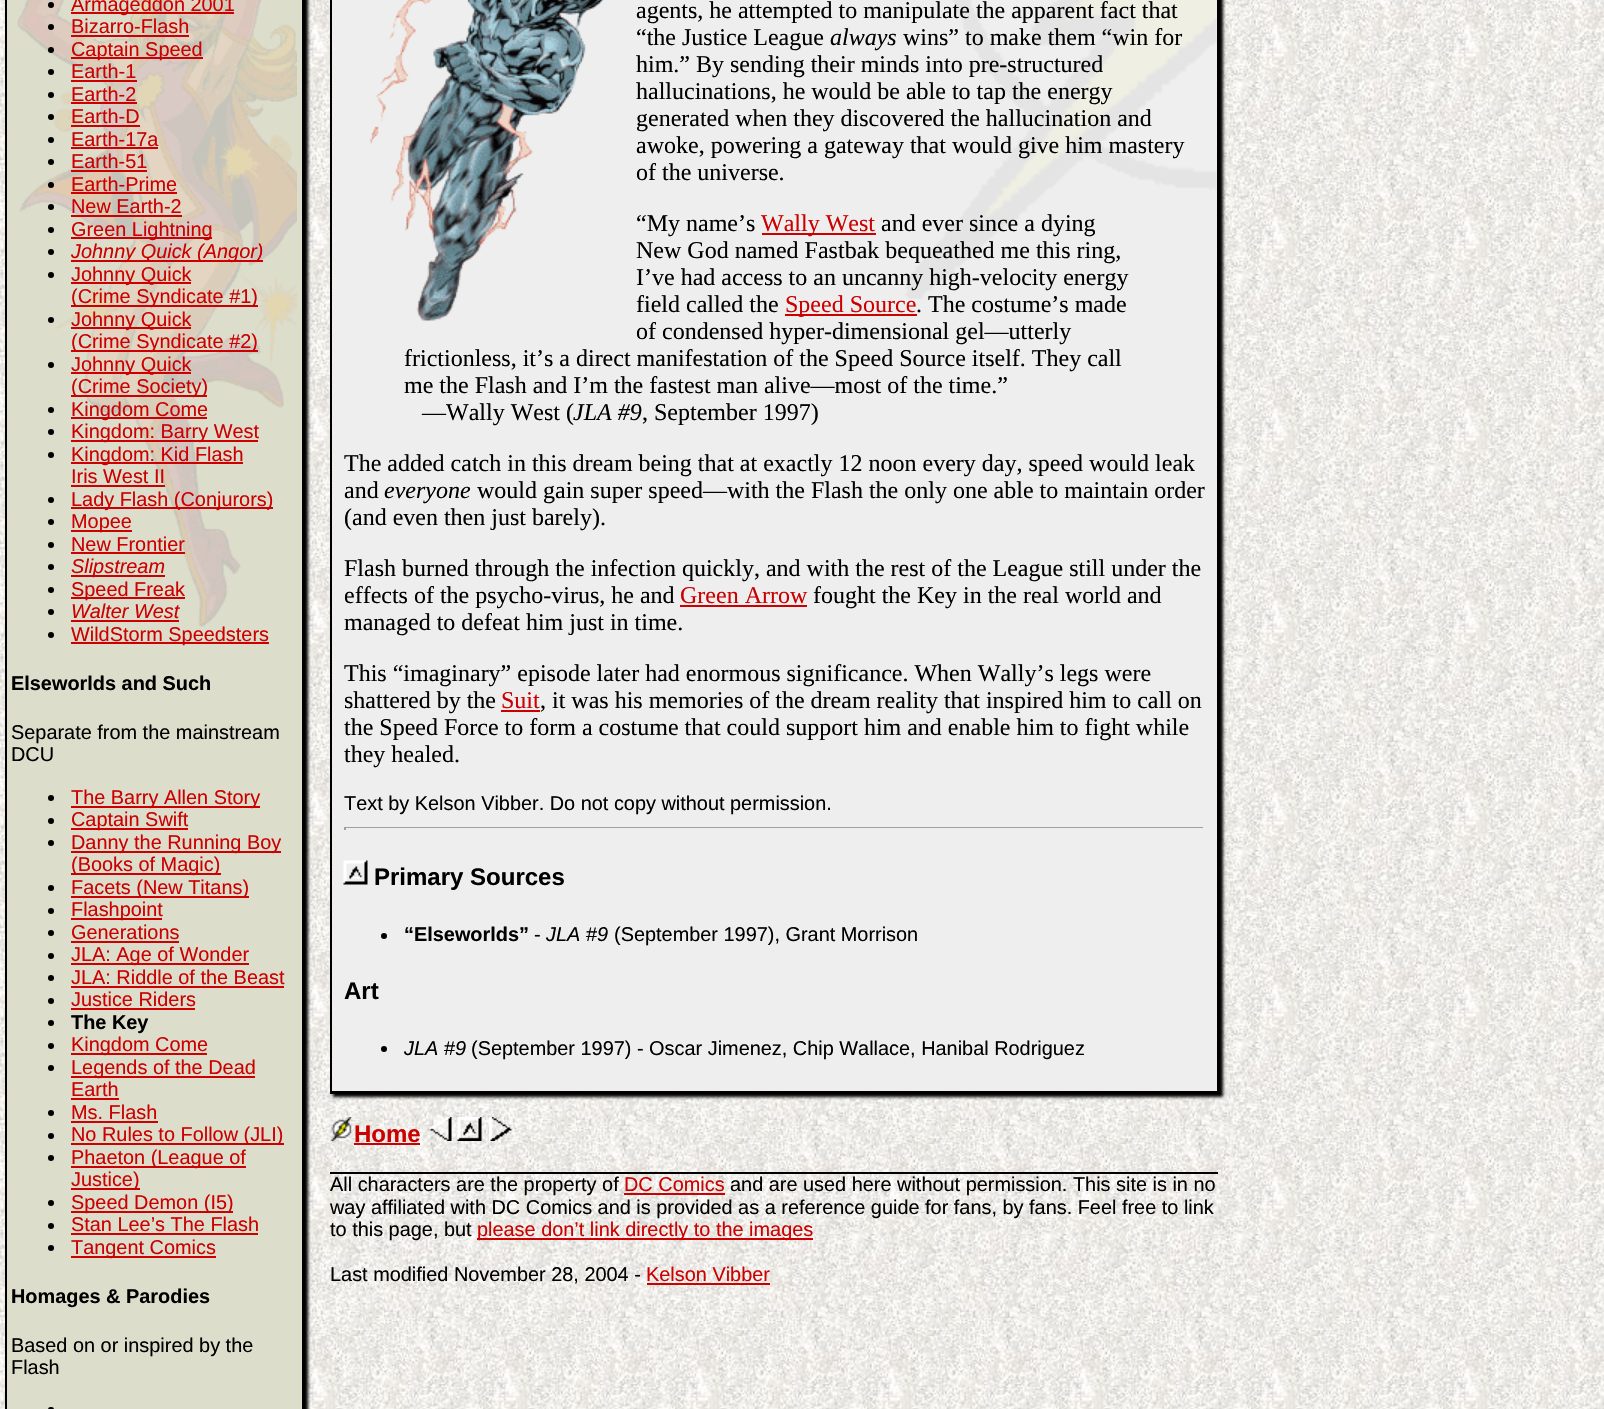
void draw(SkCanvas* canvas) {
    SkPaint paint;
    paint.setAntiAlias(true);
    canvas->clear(0xFFFFFFFF);
    canvas->drawImageRect(SkImages::DeferredFromEncodedData(SkData::MakeFromFileName("img1.png")), SkRect::MakeXYWH(0, 1286, 1604, 123), SkSamplingOptions());
    canvas->drawImageRect(SkImages::DeferredFromEncodedData(SkData::MakeFromFileName("img2.png")), SkRect::MakeXYWH(0, 0, 1604, 1286), SkSamplingOptions());
    paint.setColor(0xFF000000);
    paint.setMaskFilter(SkMaskFilter::MakeBlur(kNormal_SkBlurStyle, 1.5f));
    canvas->drawRect(SkRect::MakeXYWH(8, -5, 300, 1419), paint);
    paint.setMaskFilter(nullptr);
    paint.setColor(0xFFDDDDCC);
    canvas->drawRect(SkRect::MakeXYWH(7, 0, 295, 1409), paint);
    paint.setColor(0xFF000000);
    canvas->drawRect(SkRect::MakeXYWH(5, 0, 2, 1409), paint);
    canvas->drawImageRect(SkImages::DeferredFromEncodedData(SkData::MakeFromFileName("img3.png")), SkRect::MakeXYWH(17, 0, 280, 627), SkSamplingOptions());
    canvas->drawCircle(51, 5, 3, paint);
    paint.setColor(0xFFCC0000);
    canvas->drawRect(SkRect::MakeXYWH(71, 12, 163, 2), paint);
    SkFont font1(fontMgr->matchFamilyStyle("Liberation Sans", SkFontStyle::Normal()), 19.9f);
    font1.setSubpixel(true);
    canvas->drawString("Armageddon 2001", 71, 11, font1, paint);
    paint.setColor(0xFF000000);
    canvas->drawCircle(51, 27, 3, paint);
    paint.setColor(0xFFCC0000);
    canvas->drawString("Bizarro-Flash", 71, 33, font1, paint);
    canvas->drawRect(SkRect::MakeXYWH(71, 35, 118, 2), paint);
    paint.setColor(0xFF000000);
    canvas->drawCircle(51, 50, 3, paint);
    paint.setColor(0xFFCC0000);
    canvas->drawRect(SkRect::MakeXYWH(71, 57, 132, 2), paint);
    canvas->drawString("Captain Speed", 71, 56, font1, paint);
    paint.setColor(0xFF000000);
    canvas->drawCircle(51, 72, 3, paint);
    paint.setColor(0xFFCC0000);
    canvas->drawString("Earth-1", 71, 78, font1, paint);
    canvas->drawRect(SkRect::MakeXYWH(71, 80, 66, 2), paint);
    paint.setColor(0xFF000000);
    canvas->drawCircle(51, 95, 3, paint);
    paint.setColor(0xFFCC0000);
    canvas->drawString("Earth-2", 71, 101, font1, paint);
    canvas->drawRect(SkRect::MakeXYWH(71, 102, 66, 2), paint);
    paint.setColor(0xFF000000);
    canvas->drawCircle(51, 117, 3, paint);
    paint.setColor(0xFFCC0000);
    canvas->drawString("Earth-D", 71, 123, font1, paint);
    canvas->drawRect(SkRect::MakeXYWH(71, 125, 69, 2), paint);
    paint.setColor(0xFF000000);
    canvas->drawCircle(51, 140, 3, paint);
    paint.setColor(0xFFCC0000);
    canvas->drawString("Earth-17a", 71, 146, font1, paint);
    canvas->drawRect(SkRect::MakeXYWH(71, 147, 87, 2), paint);
    paint.setColor(0xFF000000);
    canvas->drawCircle(51, 162, 3, paint);
    paint.setColor(0xFFCC0000);
    canvas->drawString("Earth-51", 71, 168, font1, paint);
    canvas->drawRect(SkRect::MakeXYWH(71, 170, 76, 2), paint);
    paint.setColor(0xFF000000);
    canvas->drawCircle(51, 185, 3, paint);
    paint.setColor(0xFFCC0000);
    canvas->drawString("Earth-Prime", 71, 191, font1, paint);
    canvas->drawRect(SkRect::MakeXYWH(71, 192, 106, 2), paint);
    paint.setColor(0xFF000000);
    canvas->drawCircle(51, 207, 3, paint);
    paint.setColor(0xFFCC0000);
    canvas->drawString("New Earth-2", 71, 213, font1, paint);
    canvas->drawRect(SkRect::MakeXYWH(71, 215, 111, 2), paint);
    paint.setColor(0xFF000000);
    canvas->drawCircle(51, 230, 3, paint);
    paint.setColor(0xFFCC0000);
    canvas->drawRect(SkRect::MakeXYWH(71, 237, 141, 2), paint);
    canvas->drawString("Green Lightning", 71, 236, font1, paint);
    paint.setColor(0xFF000000);
    canvas->drawCircle(51, 252, 3, paint);
    paint.setColor(0xFFCC0000);
    canvas->drawRect(SkRect::MakeXYWH(71, 260, 192, 2), paint);
    SkFont font2(fontMgr->matchFamilyStyle("Liberation Sans", SkFontStyle::Italic()), 19.9f);
    font2.setSubpixel(true);
    canvas->drawString("Johnny Quick (Angor)", 71, 258, font2, paint);
    paint.setColor(0xFF000000);
    canvas->drawCircle(51, 275, 3, paint);
    paint.setColor(0xFFCC0000);
    canvas->drawRect(SkRect::MakeXYWH(71, 282, 120, 2), paint);
    canvas->drawString("Johnny Quick", 71, 281, font1, paint);
    canvas->drawRect(SkRect::MakeXYWH(71, 305, 187, 2), paint);
    canvas->drawString("(Crime Syndicate #1)", 71, 303, font1, paint);
    paint.setColor(0xFF000000);
    canvas->drawCircle(51, 320, 3, paint);
    paint.setColor(0xFFCC0000);
    canvas->drawRect(SkRect::MakeXYWH(71, 327, 120, 2), paint);
    canvas->drawString("Johnny Quick", 71, 326, font1, paint);
    canvas->drawRect(SkRect::MakeXYWH(71, 350, 187, 2), paint);
    canvas->drawString("(Crime Syndicate #2)", 71, 348, font1, paint);
    paint.setColor(0xFF000000);
    canvas->drawCircle(51, 365, 3, paint);
    paint.setColor(0xFFCC0000);
    canvas->drawRect(SkRect::MakeXYWH(71, 372, 120, 2), paint);
    canvas->drawString("Johnny Quick", 71, 371, font1, paint);
    canvas->drawRect(SkRect::MakeXYWH(71, 395, 136, 2), paint);
    canvas->drawString("(Crime Society)", 71, 393, font1, paint);
    paint.setColor(0xFF000000);
    canvas->drawCircle(51, 410, 3, paint);
    paint.setColor(0xFFCC0000);
    canvas->drawRect(SkRect::MakeXYWH(71, 417, 136, 2), paint);
    canvas->drawString("Kingdom Come", 71, 416, font1, paint);
    paint.setColor(0xFF000000);
    canvas->drawCircle(51, 432, 3, paint);
    paint.setColor(0xFFCC0000);
    canvas->drawRect(SkRect::MakeXYWH(71, 440, 187, 2), paint);
    canvas->drawString("Kingdom: Barry West", 71, 438, font1, paint);
    paint.setColor(0xFF000000);
    canvas->drawCircle(51, 455, 3, paint);
    paint.setColor(0xFFCC0000);
    canvas->drawRect(SkRect::MakeXYWH(71, 462, 172, 2), paint);
    canvas->drawString("Kingdom: Kid Flash", 71, 461, font1, paint);
    canvas->drawString("Iris West II", 71, 483, font1, paint);
    canvas->drawRect(SkRect::MakeXYWH(71, 485, 94, 2), paint);
    paint.setColor(0xFF000000);
    canvas->drawCircle(51, 500, 3, paint);
    paint.setColor(0xFFCC0000);
    canvas->drawRect(SkRect::MakeXYWH(71, 507, 202, 2), paint);
    canvas->drawString("Lady Flash (Conjurors)", 71, 506, font1, paint);
    paint.setColor(0xFF000000);
    canvas->drawCircle(51, 522, 3, paint);
    paint.setColor(0xFFCC0000);
    canvas->drawRect(SkRect::MakeXYWH(71, 530, 61, 2), paint);
    canvas->drawString("Mopee", 71, 528, font1, paint);
    paint.setColor(0xFF000000);
    canvas->drawCircle(51, 545, 3, paint);
    paint.setColor(0xFFCC0000);
    canvas->drawString("New Frontier", 71, 551, font1, paint);
    canvas->drawRect(SkRect::MakeXYWH(71, 552, 114, 2), paint);
    paint.setColor(0xFF000000);
    canvas->drawCircle(51, 567, 3, paint);
    paint.setColor(0xFFCC0000);
    canvas->drawRect(SkRect::MakeXYWH(71, 575, 94, 2), paint);
    canvas->drawString("Slipstream", 71, 573, font2, paint);
    paint.setColor(0xFF000000);
    canvas->drawCircle(51, 590, 3, paint);
    paint.setColor(0xFFCC0000);
    canvas->drawRect(SkRect::MakeXYWH(71, 597, 114, 2), paint);
    canvas->drawString("Speed Freak", 71, 596, font1, paint);
    paint.setColor(0xFF000000);
    canvas->drawCircle(51, 612, 3, paint);
    paint.setColor(0xFFCC0000);
    canvas->drawString("Walter West", 71, 618, font2, paint);
    canvas->drawRect(SkRect::MakeXYWH(71, 620, 108, 2), paint);
    paint.setColor(0xFF000000);
    canvas->drawCircle(51, 635, 3, paint);
    paint.setColor(0xFFCC0000);
    canvas->drawRect(SkRect::MakeXYWH(71, 642, 198, 2), paint);
    canvas->drawString("WildStorm Speedsters", 71, 641, font1, paint);
    SkFont font3(fontMgr->matchFamilyStyle("Liberation Sans", SkFontStyle::Bold()), 19.9f);
    font3.setSubpixel(true);
    paint.setColor(0xFF000000);
    canvas->drawString("Elseworlds and Such", 11, 690, font3, paint);
    canvas->drawString("Separate from the mainstream", 11, 739, font1, paint);
    canvas->drawString("DCU", 11, 761, font1, paint);
    canvas->drawCircle(51, 798, 3, paint);
    paint.setColor(0xFFCC0000);
    canvas->drawRect(SkRect::MakeXYWH(71, 806, 189, 2), paint);
    canvas->drawString("The Barry Allen Story", 71, 804, font1, paint);
    paint.setColor(0xFF000000);
    canvas->drawCircle(51, 821, 3, paint);
    paint.setColor(0xFFCC0000);
    canvas->drawRect(SkRect::MakeXYWH(71, 828, 117, 2), paint);
    canvas->drawString("Captain Swift", 71, 826, font1, paint);
    paint.setColor(0xFF000000);
    canvas->drawCircle(51, 843, 3, paint);
    paint.setColor(0xFFCC0000);
    canvas->drawRect(SkRect::MakeXYWH(71, 851, 210, 2), paint);
    canvas->drawString("Danny the Running Boy", 71, 849, font1, paint);
    canvas->drawRect(SkRect::MakeXYWH(71, 873, 150, 2), paint);
    canvas->drawString("(Books of Magic)", 71, 871, font1, paint);
    paint.setColor(0xFF000000);
    canvas->drawCircle(51, 888, 3, paint);
    paint.setColor(0xFFCC0000);
    canvas->drawRect(SkRect::MakeXYWH(71, 896, 178, 2), paint);
    canvas->drawString("Facets (New Titans)", 71, 894, font1, paint);
    paint.setColor(0xFF000000);
    canvas->drawCircle(51, 911, 3, paint);
    paint.setColor(0xFFCC0000);
    canvas->drawRect(SkRect::MakeXYWH(71, 918, 91, 2), paint);
    canvas->drawString("Flashpoint", 71, 916, font1, paint);
    paint.setColor(0xFF000000);
    canvas->drawCircle(51, 933, 3, paint);
    paint.setColor(0xFFCC0000);
    canvas->drawString("Generations", 71, 939, font1, paint);
    canvas->drawRect(SkRect::MakeXYWH(71, 941, 108, 2), paint);
    paint.setColor(0xFF000000);
    canvas->drawCircle(51, 956, 3, paint);
    paint.setColor(0xFFCC0000);
    canvas->drawRect(SkRect::MakeXYWH(71, 963, 178, 2), paint);
    canvas->drawString("JLA: Age of Wonder", 71, 961, font1, paint);
    paint.setColor(0xFF000000);
    canvas->drawCircle(51, 978, 3, paint);
    paint.setColor(0xFFCC0000);
    canvas->drawString("JLA: Riddle of the Beast", 71, 984, font1, paint);
    canvas->drawRect(SkRect::MakeXYWH(71, 986, 213, 2), paint);
    paint.setColor(0xFF000000);
    canvas->drawCircle(51, 1001, 3, paint);
    paint.setColor(0xFFCC0000);
    canvas->drawString("Justice Riders", 71, 1006, font1, paint);
    canvas->drawRect(SkRect::MakeXYWH(71, 1008, 124, 2), paint);
    paint.setColor(0xFF000000);
    canvas->drawCircle(51, 1023, 3, paint);
    canvas->drawString("The Key", 71, 1029, font3, paint);
    canvas->drawCircle(51, 1046, 3, paint);
    paint.setColor(0xFFCC0000);
    canvas->drawRect(SkRect::MakeXYWH(71, 1053, 136, 2), paint);
    canvas->drawString("Kingdom Come", 71, 1051, font1, paint);
    paint.setColor(0xFF000000);
    canvas->drawCircle(51, 1068, 3, paint);
    paint.setColor(0xFFCC0000);
    canvas->drawRect(SkRect::MakeXYWH(71, 1076, 184, 2), paint);
    canvas->drawString("Legends of the Dead", 71, 1074, font1, paint);
    canvas->drawString("Earth", 71, 1096, font1, paint);
    canvas->drawRect(SkRect::MakeXYWH(71, 1098, 48, 2), paint);
    paint.setColor(0xFF000000);
    canvas->drawCircle(51, 1113, 3, paint);
    paint.setColor(0xFFCC0000);
    canvas->drawString("Ms. Flash", 71, 1119, font1, paint);
    canvas->drawRect(SkRect::MakeXYWH(71, 1121, 87, 2), paint);
    paint.setColor(0xFF000000);
    canvas->drawCircle(51, 1136, 3, paint);
    paint.setColor(0xFFCC0000);
    canvas->drawRect(SkRect::MakeXYWH(71, 1143, 213, 2), paint);
    canvas->drawString("No Rules to Follow (JLI)", 71, 1141, font1, paint);
    paint.setColor(0xFF000000);
    canvas->drawCircle(51, 1158, 3, paint);
    paint.setColor(0xFFCC0000);
    canvas->drawRect(SkRect::MakeXYWH(71, 1166, 175, 2), paint);
    canvas->drawString("Phaeton (League of", 71, 1164, font1, paint);
    canvas->drawRect(SkRect::MakeXYWH(71, 1188, 69, 2), paint);
    canvas->drawString("Justice)", 71, 1186, font1, paint);
    paint.setColor(0xFF000000);
    canvas->drawCircle(51, 1203, 3, paint);
    paint.setColor(0xFFCC0000);
    canvas->drawRect(SkRect::MakeXYWH(71, 1211, 162, 2), paint);
    canvas->drawString("Speed Demon (I5)", 71, 1209, font1, paint);
    paint.setColor(0xFF000000);
    canvas->drawCircle(51, 1226, 3, paint);
    paint.setColor(0xFFCC0000);
    canvas->drawString("Stan Lee’s The Flash", 71, 1231, font1, paint);
    canvas->drawRect(SkRect::MakeXYWH(71, 1233, 187, 2), paint);
    paint.setColor(0xFF000000);
    canvas->drawCircle(51, 1248, 3, paint);
    paint.setColor(0xFFCC0000);
    canvas->drawRect(SkRect::MakeXYWH(71, 1256, 145, 2), paint);
    canvas->drawString("Tangent Comics", 71, 1254, font1, paint);
    paint.setColor(0xFF000000);
    canvas->drawString("Homages & Parodies", 11, 1303, font3, paint);
    canvas->drawString("Based on or inspired by the", 11, 1352, font1, paint);
    canvas->drawString("Flash", 11, 1374, font1, paint);
    canvas->drawRoundRect(SkRect::MakeXYWH(48, 1407, 6, 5), 3, 3, paint);
    paint.setMaskFilter(SkMaskFilter::MakeBlur(kNormal_SkBlurStyle, 1.5f));
    canvas->drawRect(SkRect::MakeXYWH(333, -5, 890, 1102), paint);
    paint.setMaskFilter(nullptr);
    paint.setColor(0xFFEEEEEE);
    canvas->drawRect(SkRect::MakeXYWH(332, 0, 885, 1091), paint);
    canvas->drawImageRect(SkImages::DeferredFromEncodedData(SkData::MakeFromFileName("img4.png")), SkRect::MakeXYWH(905, 0, 312, 299), SkSamplingOptions());
    paint.setColor(0xFF000000);
    canvas->drawRect(SkRect::MakeXYWH(1219, 1093, 1, 1), paint);
    canvas->drawRect(SkRect::MakeXYWH(330, 1091, 7, 3), paint);
    canvas->drawRect(SkRect::MakeXYWH(330, 0, 2, 1094), paint);
    canvas->drawImageRect(SkImages::DeferredFromEncodedData(SkData::MakeFromFileName("img5.png")), SkRect::MakeXYWH(370, 0, 234, 322), SkSamplingOptions());
    SkFont font4(fontMgr->matchFamilyStyle("Liberation Serif", SkFontStyle::Normal()), 24);
    font4.setSubpixel(true);
    canvas->drawString("agents, he attempted to manipulate the apparent fact that", 636, 18, font4, paint);
    canvas->drawString("“the Justice League", 636, 45, font4, paint);
    SkFont font5(fontMgr->matchFamilyStyle("Liberation Serif", SkFontStyle::Italic()), 24);
    font5.setSubpixel(true);
    canvas->drawString("always", 830, 45, font5, paint);
    canvas->drawString("wins” to make them “win for", 903, 45, font4, paint);
    canvas->drawString("him.” By sending their minds into pre-structured", 636, 72, font4, paint);
    canvas->drawString("hallucinations, he would be able to tap the energy", 636, 99, font4, paint);
    canvas->drawString("generated when they discovered the hallucination and", 636, 126, font4, paint);
    canvas->drawString("awoke, powering a gateway that would give him mastery", 636, 153, font4, paint);
    canvas->drawString("of the universe.", 636, 180, font4, paint);
    canvas->drawString("“My name’s", 636, 231, font4, paint);
    paint.setColor(0xFFCC0000);
    canvas->drawRect(SkRect::MakeXYWH(762, 233, 114, 2), paint);
    canvas->drawString("Wally West", 761, 231, font4, paint);
    paint.setColor(0xFF000000);
    canvas->drawString("and ever since a dying", 881, 231, font4, paint);
    canvas->drawString("New God named Fastbak bequeathed me this ring,", 636, 258, font4, paint);
    canvas->drawString("I’ve had access to an uncanny high-velocity energy", 636, 285, font4, paint);
    canvas->drawString("field called the", 636, 312, font4, paint);
    paint.setColor(0xFFCC0000);
    canvas->drawRect(SkRect::MakeXYWH(785, 314, 132, 2), paint);
    canvas->drawString("Speed Source", 785, 312, font4, paint);
    paint.setColor(0xFF000000);
    canvas->drawString(". The costume’s made", 916, 312, font4, paint);
    canvas->drawString("of condensed hyper-dimensional gel—utterly", 636, 339, font4, paint);
    canvas->drawString("frictionless, it’s a direct manifestation of the Speed Source itself. They call", 404, 366, font4, paint);
    canvas->drawString("me the Flash and I’m the fastest man alive—most of the time.”", 404, 393, font4, paint);
    canvas->drawString("—Wally West (", 422, 420, font4, paint);
    canvas->drawString("JLA #9", 573, 420, font5, paint);
    canvas->drawString(", September 1997)", 642, 420, font4, paint);
    canvas->drawString("The added catch in this dream being that at exactly 12 noon every day, speed would leak", 344, 471, font4, paint);
    canvas->drawString("and", 344, 498, font4, paint);
    canvas->drawString("everyone", 384, 498, font5, paint);
    canvas->drawString("would gain super speed—with the Flash the only one able to maintain order", 477, 498, font4, paint);
    canvas->drawString("(and even then just barely).", 344, 525, font4, paint);
    canvas->drawString("Flash burned through the infection quickly, and with the rest of the League still under the", 344, 576, font4, paint);
    canvas->drawString("effects of the psycho-virus, he and", 344, 603, font4, paint);
    paint.setColor(0xFFCC0000);
    canvas->drawString("Green Arrow", 680, 603, font4, paint);
    canvas->drawRect(SkRect::MakeXYWH(680, 605, 127, 2), paint);
    paint.setColor(0xFF000000);
    canvas->drawString("fought the Key in the real world and", 813, 603, font4, paint);
    canvas->drawString("managed to defeat him just in time.", 344, 630, font4, paint);
    canvas->drawString("This “imaginary” episode later had enormous significance. When Wally’s legs were", 344, 681, font4, paint);
    canvas->drawString("shattered by the", 344, 708, font4, paint);
    paint.setColor(0xFFCC0000);
    canvas->drawString("Suit", 501, 708, font4, paint);
    canvas->drawRect(SkRect::MakeXYWH(501, 710, 39, 2), paint);
    paint.setColor(0xFF000000);
    canvas->drawString(", it was his memories of the dream reality that inspired him to call on", 540, 708, font4, paint);
    canvas->drawString("the Speed Force to form a costume that could support him and enable him to fight while", 344, 735, font4, paint);
    canvas->drawString("they healed.", 344, 762, font4, paint);
    canvas->drawString("Text by Kelson Vibber. Do not copy without permission.", 344, 810, font1, paint);
    paint.setColor(0xFF9F9F9F);
    canvas->drawRect(SkRect::MakeXYWH(344, 827, 861, 1), paint);
    paint.setColor(0xFFEEEEEE);
    canvas->drawRect(SkRect::MakeXYWH(1203, 827, 2, 3), paint);
    paint.setColor(0xFF9F9F9F);
    canvas->drawRect(SkRect::MakeXYWH(344, 827, 2, 3), paint);
    canvas->drawImageRect(SkImages::DeferredFromEncodedData(SkData::MakeFromFileName("img6.png")), SkRect::MakeXYWH(343, 860, 25, 25), SkSamplingOptions());
    SkFont font6(fontMgr->matchFamilyStyle("Liberation Sans", SkFontStyle::Bold()), 24);
    font6.setSubpixel(true);
    paint.setColor(0xFF000000);
    canvas->drawString("Primary Sources", 374, 885, font6, paint);
    canvas->drawCircle(384, 936, 3, paint);
    canvas->drawString("“Elseworlds”", 404, 941, font3, paint);
    canvas->drawString("-", 534, 941, font1, paint);
    canvas->drawString("JLA #9", 546, 941, font2, paint);
    canvas->drawString("(September 1997), Grant Morrison", 614, 941, font1, paint);
    canvas->drawString("Art", 344, 999, font6, paint);
    canvas->drawCircle(384, 1049, 3, paint);
    canvas->drawString("JLA #9", 404, 1055, font2, paint);
    canvas->drawString("(September 1997) - Oscar Jimenez, Chip Wallace, Hanibal Rodriguez", 471, 1055, font1, paint);
    canvas->drawImageRect(SkImages::DeferredFromEncodedData(SkData::MakeFromFileName("img7.png")), SkRect::MakeXYWH(331, 1117, 21, 24), SkSamplingOptions());
    paint.setColor(0xFFCC0000);
    canvas->drawString("Home", 354, 1142, font6, paint);
    canvas->drawRect(SkRect::MakeXYWH(354, 1143, 66, 2), paint);
    canvas->drawImageRect(SkImages::DeferredFromEncodedData(SkData::MakeFromFileName("img8.png")), SkRect::MakeXYWH(428, 1117, 24, 24), SkSamplingOptions());
    canvas->drawImageRect(SkImages::DeferredFromEncodedData(SkData::MakeFromFileName("img9.png")), SkRect::MakeXYWH(457, 1117, 25, 24), SkSamplingOptions());
    canvas->drawImageRect(SkImages::DeferredFromEncodedData(SkData::MakeFromFileName("img10.png")), SkRect::MakeXYWH(489, 1117, 23, 24), SkSamplingOptions());
    paint.setColor(0xFF000000);
    canvas->drawRect(SkRect::MakeXYWH(330, 1172, 888, 2), paint);
    canvas->drawString("All characters are the property of", 330, 1191, font1, paint);
    paint.setColor(0xFFCC0000);
    canvas->drawString("DC Comics", 624, 1191, font1, paint);
    canvas->drawRect(SkRect::MakeXYWH(624, 1193, 101, 2), paint);
    paint.setColor(0xFF000000);
    canvas->drawString("and are used here without permission. This site is in no", 730, 1191, font1, paint);
    canvas->drawString("way affiliated with DC Comics and is provided as a reference guide for fans, by fans. Feel free to link", 330, 1214, font1, paint);
    canvas->drawString("to this page, but", 330, 1236, font1, paint);
    paint.setColor(0xFFCC0000);
    canvas->drawRect(SkRect::MakeXYWH(477, 1238, 336, 2), paint);
    canvas->drawString("please don’t link directly to the images", 477, 1236, font1, paint);
    paint.setColor(0xFF000000);
    canvas->drawString("Last modified November 28, 2004 -", 330, 1281, font1, paint);
    paint.setColor(0xFFCC0000);
    canvas->drawString("Kelson Vibber", 646, 1281, font1, paint);
    canvas->drawRect(SkRect::MakeXYWH(647, 1283, 123, 2), paint);
}
